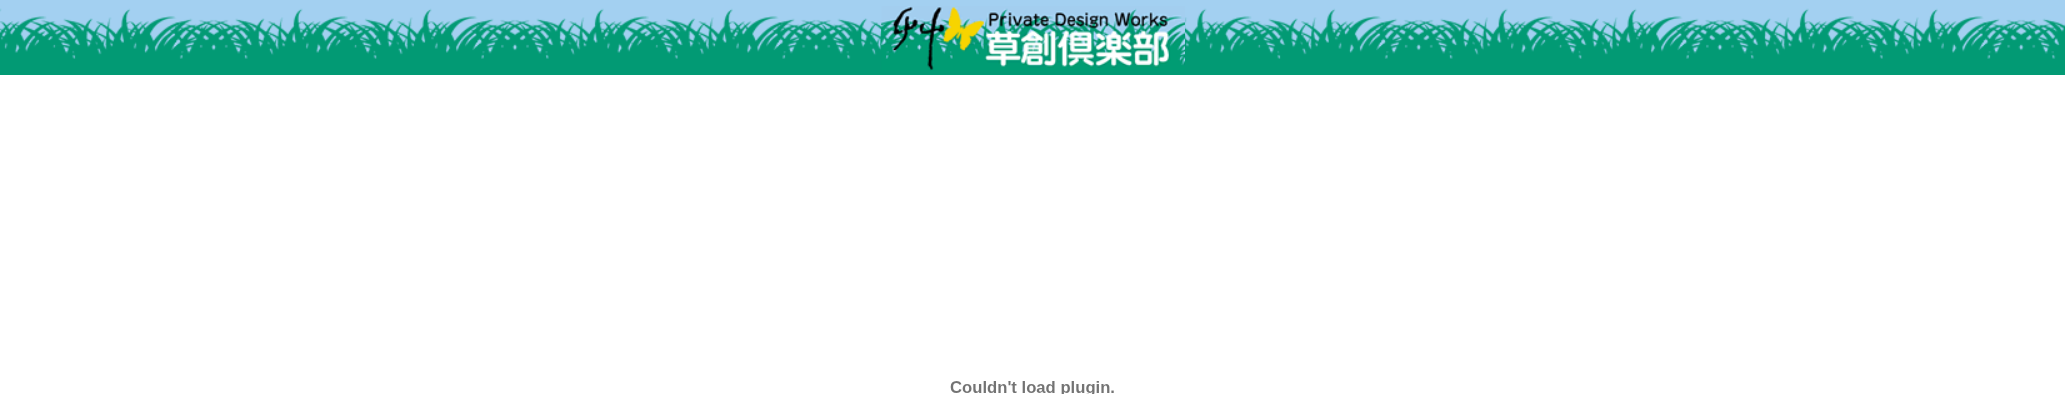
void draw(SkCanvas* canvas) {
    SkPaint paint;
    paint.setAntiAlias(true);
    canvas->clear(0xFFFFFFFF);
    canvas->drawImageRect(SkImages::DeferredFromEncodedData(SkData::MakeFromFileName("img1.png")), SkRect::MakeXYWH(0, 0, 2065, 75), SkSamplingOptions());
    canvas->drawImageRect(SkImages::DeferredFromEncodedData(SkData::MakeFromFileName("img2.png")), SkRect::MakeXYWH(881, 6, 304, 65), SkSamplingOptions());
    canvas->drawImageRect(SkImages::DeferredFromEncodedData(SkData::MakeFromFileName("img3.png")), SkRect::MakeXYWH(950, 381, 164, 13), SkSamplingOptions());
}
